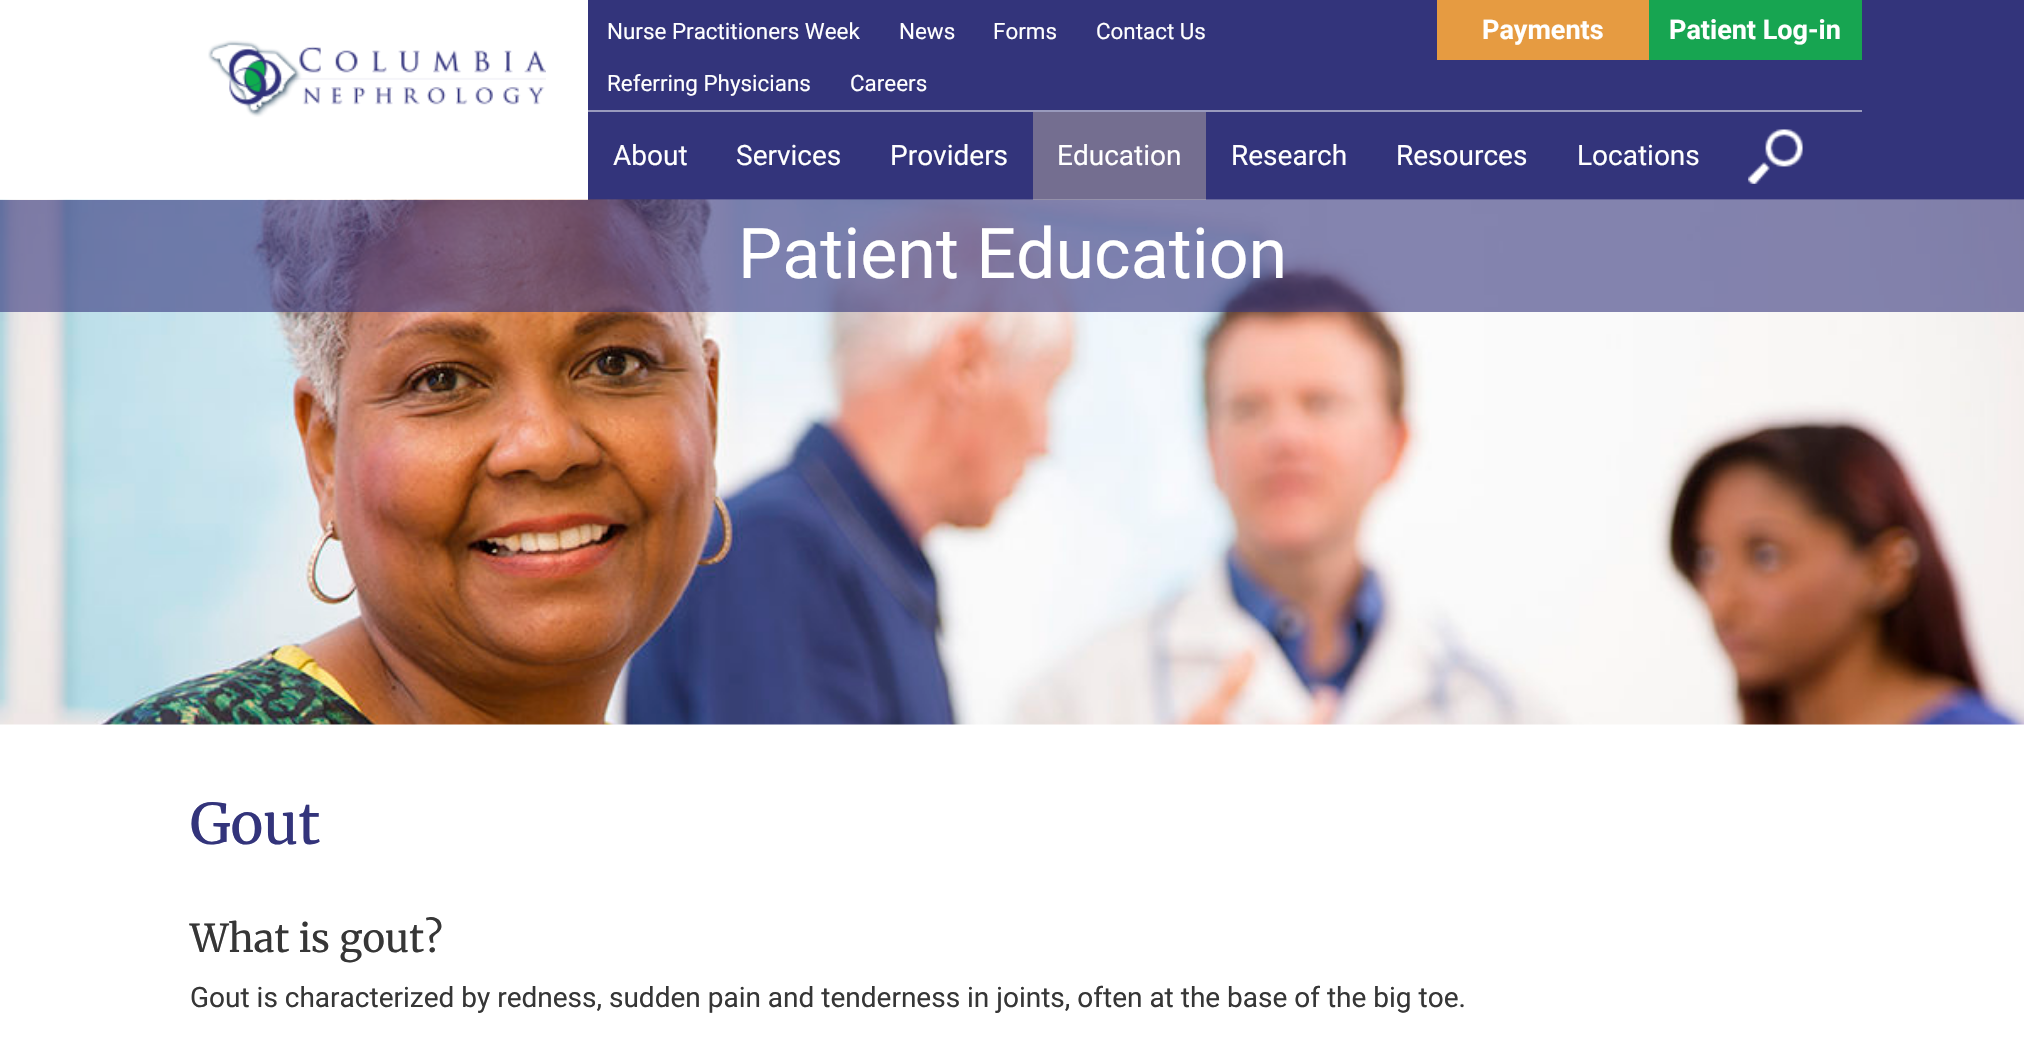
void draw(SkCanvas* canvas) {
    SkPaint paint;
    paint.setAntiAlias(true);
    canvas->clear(0xFFFFFFFF);
    paint.setColor(0xFF33347B);
    canvas->drawRect(SkRect::MakeXYWH(588, 0, 1436, 200), paint);
    canvas->drawImageRect(SkImages::DeferredFromEncodedData(SkData::MakeFromFileName("img1.png")), SkRect::MakeXYWH(208, 40, 338, 77), SkSamplingOptions());
    paint.setColor(0xFF999ABD);
    canvas->drawRect(SkRect::MakeXYWH(588, 110, 1274, 2), paint);
    SkFont font1(fontMgr->matchFamilyStyle("Roboto", SkFontStyle::Normal()), 22.4f);
    font1.setSubpixel(true);
    paint.setColor(0xFFFFFFFF);
    canvas->drawString("Nurse Practitioners Week", 607, 39, font1, paint);
    canvas->drawString("News", 899, 39, font1, paint);
    canvas->drawString("Forms", 993, 39, font1, paint);
    canvas->drawString("Contact Us", 1096, 39, font1, paint);
    canvas->drawString("Referring Physicians", 607, 91, font1, paint);
    canvas->drawString("Careers", 850, 91, font1, paint);
    paint.setColor(0xFFE69B41);
    canvas->drawRect(SkRect::MakeXYWH(1437, 0, 212, 60), paint);
    SkFont font2(fontMgr->matchFamilyStyle("Roboto", SkFontStyle::Bold()), 27);
    font2.setSubpixel(true);
    paint.setColor(0xFFFFFFFF);
    canvas->drawString("Payments", 1482, 39, font2, paint);
    paint.setColor(0xFF17A551);
    canvas->drawRect(SkRect::MakeXYWH(1649, 0, 213, 60), paint);
    paint.setColor(0xFFFFFFFF);
    canvas->drawString("Patient Log-in", 1669, 39, font2, paint);
    SkFont font3(fontMgr->matchFamilyStyle("Roboto", SkFontStyle::Normal()), 28);
    font3.setSubpixel(true);
    canvas->drawString("About", 613, 165, font3, paint);
    canvas->drawString("Services", 736, 165, font3, paint);
    canvas->drawString("Providers", 890, 165, font3, paint);
    paint.setColor(0xFF746E90);
    canvas->drawRect(SkRect::MakeXYWH(1033, 112, 173, 88), paint);
    paint.setColor(0xFFFFFFFF);
    canvas->drawString("Education", 1057, 165, font3, paint);
    canvas->drawString("Research", 1231, 165, font3, paint);
    canvas->drawString("Resources", 1396, 165, font3, paint);
    canvas->drawString("Locations", 1577, 165, font3, paint);
    canvas->drawImageRect(SkImages::DeferredFromEncodedData(SkData::MakeFromFileName("img2.png")), SkRect::MakeXYWH(1748, 129, 55, 55), SkSamplingOptions());
    canvas->drawImageRect(SkImages::DeferredFromEncodedData(SkData::MakeFromFileName("img3.png")), SkRect::MakeXYWH(0, 199, 2024, 526), SkSamplingOptions());
    paint.setColor(0x9933347B);
    canvas->drawRect(SkRect::MakeXYWH(0, 200, 2024, 112), paint);
    SkFont font4(fontMgr->matchFamilyStyle("Roboto", SkFontStyle::Normal()), 70);
    font4.setSubpixel(true);
    paint.setColor(0xFFFFFFFF);
    canvas->drawString("Patient Education", 738, 278, font4, paint);
    SkFont font5(fontMgr->matchFamilyStyle("Merriweather", SkFontStyle::Normal()), 56);
    font5.setSubpixel(true);
    paint.setColor(0xFF33347B);
    canvas->drawString("Gout", 190, 844, font5, paint);
    SkFont font6(fontMgr->matchFamilyStyle("Merriweather", SkFontStyle::Normal()), 38.5f);
    font6.setSubpixel(true);
    paint.setColor(0xFF363636);
    canvas->drawString("What is gout?", 190, 952, font6, paint);
    canvas->drawString("Gout is characterized by redness, sudden pain and tenderness in joints, often at the base of the big toe.", 190, 1007, font3, paint);
}
